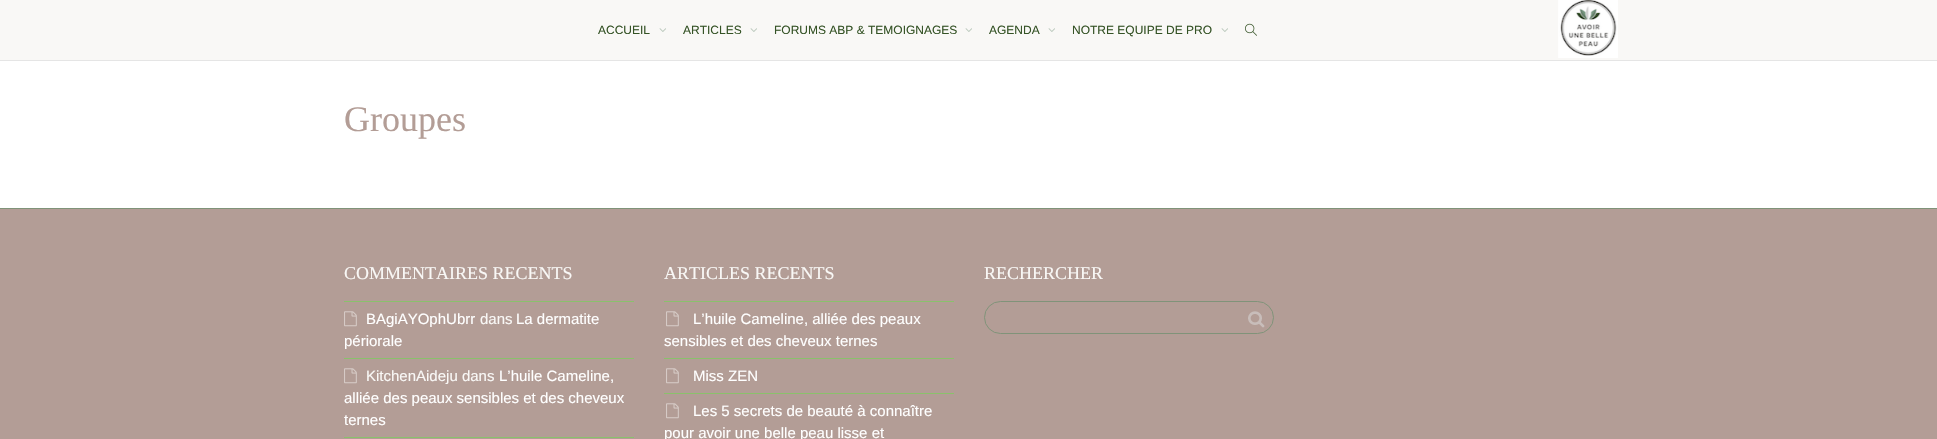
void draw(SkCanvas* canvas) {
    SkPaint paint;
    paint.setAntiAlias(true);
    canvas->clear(0xFFFFFFFF);
    paint.setColor(0xFFF9F8F6);
    canvas->drawRect(SkRect::MakeXYWH(0, 0, 1937, 60), paint);
    paint.setColor(0xFFE5E5E5);
    canvas->drawRect(SkRect::MakeXYWH(0, 60, 1937, 1), paint);
    SkFont font1(fontMgr->matchFamilyStyle("Liberation Sans", SkFontStyle::Normal()), 12);
    font1.setSubpixel(true);
    paint.setColor(0xFF355326);
    canvas->drawString("ACCUEIL", 598, 34, font1, paint);
    canvas->drawImageRect(SkImages::DeferredFromEncodedData(SkData::MakeFromFileName("img1.png")), SkRect::MakeXYWH(659, 28, 7, 4), SkSamplingOptions());
    canvas->drawString("ARTICLES", 683, 34, font1, paint);
    canvas->drawImageRect(SkImages::DeferredFromEncodedData(SkData::MakeFromFileName("img1.png")), SkRect::MakeXYWH(750, 28, 7, 4), SkSamplingOptions());
    canvas->drawString("FORUMS ABP & TEMOIGNAGES", 774, 34, font1, paint);
    canvas->drawImageRect(SkImages::DeferredFromEncodedData(SkData::MakeFromFileName("img1.png")), SkRect::MakeXYWH(965, 28, 7, 4), SkSamplingOptions());
    canvas->drawString("AGENDA", 989, 34, font1, paint);
    canvas->drawImageRect(SkImages::DeferredFromEncodedData(SkData::MakeFromFileName("img1.png")), SkRect::MakeXYWH(1048, 28, 7, 4), SkSamplingOptions());
    canvas->drawString("NOTRE EQUIPE DE PRO", 1072, 34, font1, paint);
    canvas->drawImageRect(SkImages::DeferredFromEncodedData(SkData::MakeFromFileName("img1.png")), SkRect::MakeXYWH(1221, 28, 7, 4), SkSamplingOptions());
    canvas->drawImageRect(SkImages::DeferredFromEncodedData(SkData::MakeFromFileName("img2.png")), SkRect::MakeXYWH(1245, 23, 12, 13), SkSamplingOptions());
    canvas->drawImageRect(SkImages::DeferredFromEncodedData(SkData::MakeFromFileName("img3.png")), SkRect::MakeXYWH(1558, 0, 60, 58), SkSamplingOptions());
    SkFont font2(fontMgr->matchFamilyStyle("Liberation Serif", SkFontStyle::Normal()), 36);
    font2.setSubpixel(true);
    paint.setColor(0xFFB39D96);
    canvas->drawString("Groupes", 344, 131, font2, paint);
    canvas->drawRect(SkRect::MakeXYWH(0, 209, 1937, 230), paint);
    paint.setColor(0xFF809379);
    canvas->drawRect(SkRect::MakeXYWH(0, 208, 1937, 1), paint);
    SkFont font3(fontMgr->matchFamilyStyle("Liberation Serif", SkFontStyle::Normal()), 18);
    font3.setSubpixel(true);
    paint.setColor(0xFFF9F8F6);
    canvas->drawString("COMMENTAIRES RECENTS", 344, 279, font3, paint);
    paint.setColor(0xFF8AC16C);
    canvas->drawRect(SkRect::MakeXYWH(344, 301, 290, 1), paint);
    canvas->drawRect(SkRect::MakeXYWH(344, 358, 290, 1), paint);
    canvas->drawImageRect(SkImages::DeferredFromEncodedData(SkData::MakeFromFileName("img4.png")), SkRect::MakeXYWH(344, 311, 13, 16), SkSamplingOptions());
    SkFont font4(fontMgr->matchFamilyStyle("Liberation Sans", SkFontStyle::Normal()), 15);
    font4.setSubpixel(true);
    paint.setColor(0xFFFFFFFF);
    canvas->drawString("BAgiAYOphUbrr", 366, 324, font4, paint);
    paint.setColor(0xFFF9F8F6);
    canvas->drawString("dans", 480, 324, font4, paint);
    paint.setColor(0xFFFFFFFF);
    canvas->drawString("La dermatite", 516, 324, font4, paint);
    canvas->drawString("périorale", 344, 346, font4, paint);
    paint.setColor(0xFF8AC16C);
    canvas->drawRect(SkRect::MakeXYWH(344, 437, 290, 1), paint);
    canvas->drawImageRect(SkImages::DeferredFromEncodedData(SkData::MakeFromFileName("img4.png")), SkRect::MakeXYWH(344, 368, 13, 16), SkSamplingOptions());
    paint.setColor(0xFFF9F8F6);
    canvas->drawString("KitchenAideju dans", 366, 381, font4, paint);
    paint.setColor(0xFFFFFFFF);
    canvas->drawString("L’huile Cameline,", 499, 381, font4, paint);
    canvas->drawString("alliée des peaux sensibles et des cheveux", 344, 403, font4, paint);
    canvas->drawString("ternes", 344, 425, font4, paint);
    paint.setColor(0xFFF9F8F6);
    canvas->drawString("ARTICLES RECENTS", 664, 279, font3, paint);
    paint.setColor(0xFF8AC16C);
    canvas->drawRect(SkRect::MakeXYWH(664, 301, 290, 1), paint);
    canvas->drawRect(SkRect::MakeXYWH(664, 358, 290, 1), paint);
    canvas->drawImageRect(SkImages::DeferredFromEncodedData(SkData::MakeFromFileName("img4.png")), SkRect::MakeXYWH(666, 311, 13, 16), SkSamplingOptions());
    paint.setColor(0xFFFFFFFF);
    canvas->drawString("L’huile Cameline, alliée des peaux", 693, 324, font4, paint);
    canvas->drawString("sensibles et des cheveux ternes", 664, 346, font4, paint);
    paint.setColor(0xFF8AC16C);
    canvas->drawRect(SkRect::MakeXYWH(664, 393, 290, 1), paint);
    canvas->drawImageRect(SkImages::DeferredFromEncodedData(SkData::MakeFromFileName("img4.png")), SkRect::MakeXYWH(666, 368, 13, 16), SkSamplingOptions());
    paint.setColor(0xFFFFFFFF);
    canvas->drawString("Miss ZEN", 693, 381, font4, paint);
    canvas->drawImageRect(SkImages::DeferredFromEncodedData(SkData::MakeFromFileName("img4.png")), SkRect::MakeXYWH(666, 403, 13, 16), SkSamplingOptions());
    canvas->drawString("Les 5 secrets de beauté à connaître", 693, 416, font4, paint);
    canvas->drawString("pour avoir une belle peau lisse et", 664, 438, font4, paint);
    paint.setColor(0xFFF9F8F6);
    canvas->drawString("RECHERCHER", 984, 279, font3, paint);
    paint.setStyle(SkPaint::kStroke_Style);
    paint.setStrokeWidth(1);
    paint.setColor(0xFF809379);
    canvas->drawRoundRect(SkRect::MakeXYWH(984.5f, 301.5f, 289, 32), 16, 16, paint);
    canvas->drawImageRect(SkImages::DeferredFromEncodedData(SkData::MakeFromFileName("img5.png")), SkRect::MakeXYWH(1248, 311, 17, 17), SkSamplingOptions());
}
